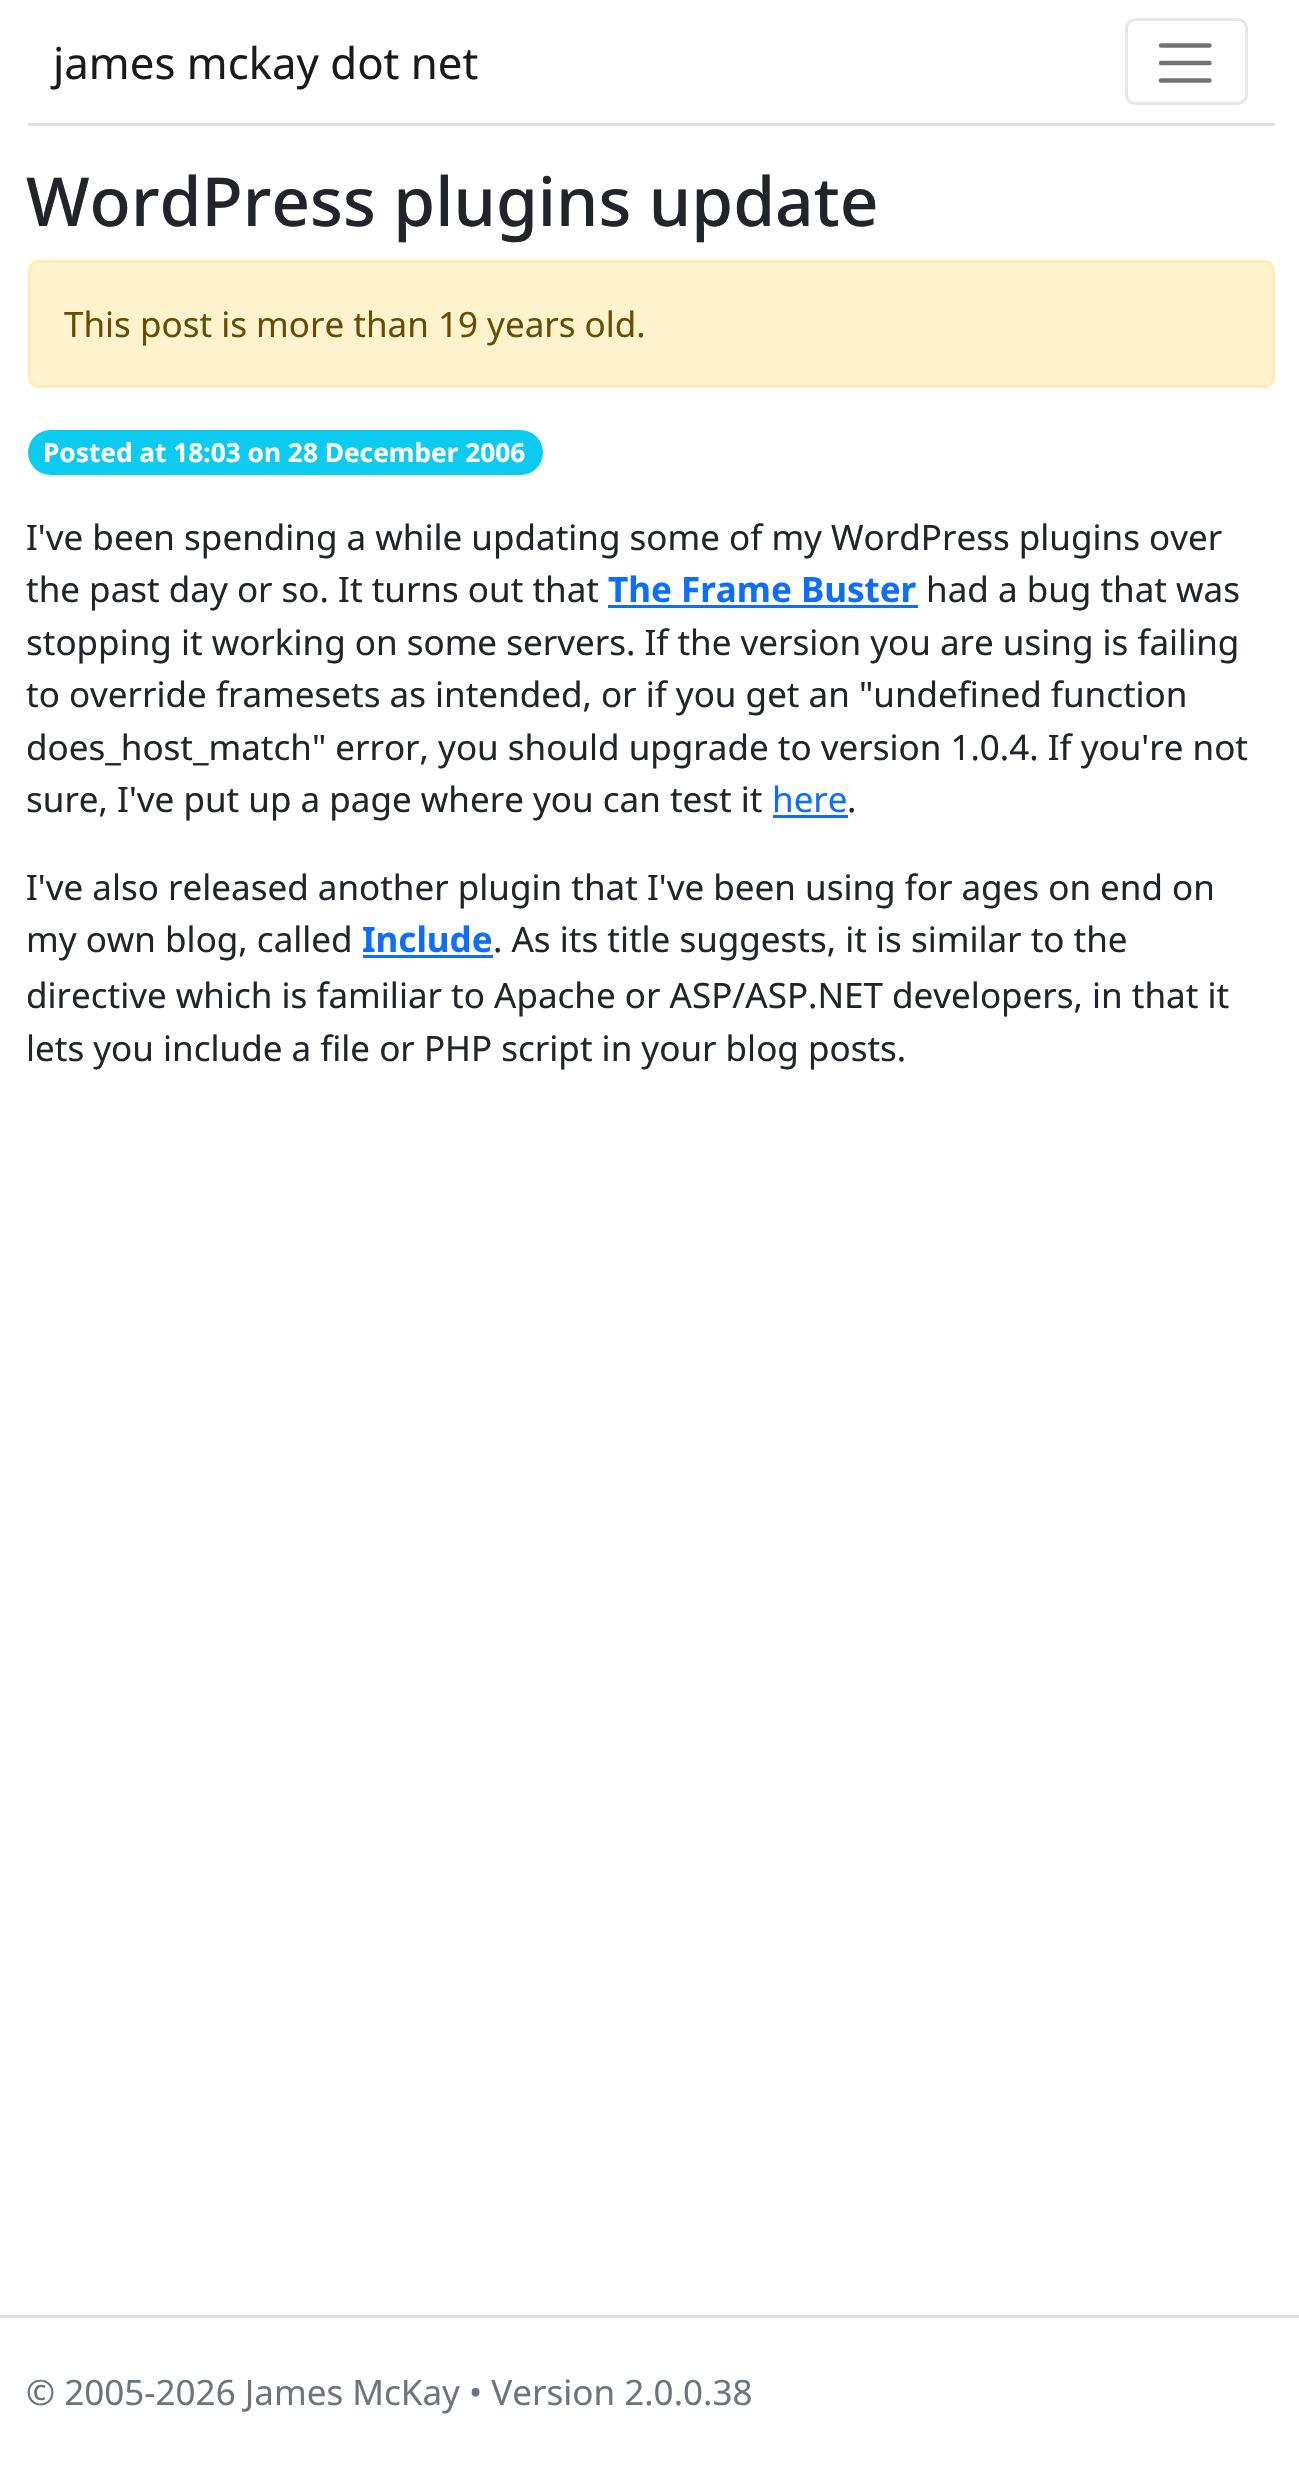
void draw(SkCanvas* canvas) {
    SkPaint paint;
    paint.setAntiAlias(true);
    canvas->clear(0xFFFFFFFF);
    paint.setColor(0xFFDEE2E6);
    canvas->drawRect(SkRect::MakeXYWH(28, 123, 1247, 3), paint);
    SkFont font1(fontMgr->matchFamilyStyle("Noto Sans", SkFontStyle::Normal()), 43.75f);
    font1.setSubpixel(true);
    paint.setColor(0xFF1A1A1A);
    canvas->drawString("james mckay dot net", 53, 79, font1, paint);
    paint.setStyle(SkPaint::kStroke_Style);
    paint.setStrokeWidth(3);
    paint.setColor(0xFFE6E6E6);
    canvas->drawRoundRect(SkRect::MakeXYWH(1126.5f, 19.5f, 120, 84), 8.5f, 8.5f, paint);
    paint.setStrokeWidth(4.4f);
    paint.setStrokeCap(SkPaint::kRound_Cap);
    paint.setColor(0xFF737373);
    canvas->drawPath(SkPathBuilder().moveTo(1161, 45.5f).lineTo(1209.5f, 45.5f).moveTo(1161, 63).lineTo(1209.5f, 63).moveTo(1161, 80.5f).lineTo(1209.5f, 80.5f).detach(), paint);
    SkFont font2(fontMgr->matchFamilyStyle("Noto Sans", SkFontStyle(500, SkFontStyle::kNormal_Width, SkFontStyle::kUpright_Slant)), 67.6f);
    font2.setSubpixel(true);
    paint.setStyle(SkPaint::kFill_Style);
    paint.setColor(0xFF212529);
    canvas->drawString("WordPress plugins update", 26, 226, font2, paint);
    paint.setColor(0xFFFFF3CD);
    canvas->drawRoundRect(SkRect::MakeXYWH(29.5f, 261.5f, 1244, 125), 8.5f, 8.5f, paint);
    paint.setStyle(SkPaint::kStroke_Style);
    paint.setStrokeWidth(3);
    paint.setStrokeCap(SkPaint::kButt_Cap);
    paint.setColor(0xFFFFECB5);
    canvas->drawRoundRect(SkRect::MakeXYWH(29.5f, 261.5f, 1244, 125), 8.5f, 8.5f, paint);
    SkFont font3(fontMgr->matchFamilyStyle("Noto Sans", SkFontStyle::Normal()), 35);
    font3.setSubpixel(true);
    paint.setStyle(SkPaint::kFill_Style);
    paint.setColor(0xFF664D03);
    canvas->drawString("This post is more than 19 years old.", 64, 337, font3, paint);
    paint.setColor(0xFF0DCAF0);
    canvas->drawRoundRect(SkRect::MakeXYWH(28, 430, 515, 45), 22.5f, 22.5f, paint);
    SkFont font4(fontMgr->matchFamilyStyle("Noto Sans", SkFontStyle::Bold()), 26.25f);
    font4.setSubpixel(true);
    paint.setColor(0xFFFFFFFF);
    canvas->drawString("Posted at 18:03 on 28 December 2006", 43, 462, font4, paint);
    paint.setColor(0xFF212529);
    canvas->drawString("I've been spending a while updating some of my WordPress plugins over", 26, 550, font3, paint);
    canvas->drawString("the past day or so. It turns out that", 26, 602, font3, paint);
    SkFont font5(fontMgr->matchFamilyStyle("Noto Sans", SkFontStyle::Bold()), 35);
    font5.setSubpixel(true);
    paint.setColor(0xFF0D6EFD);
    canvas->drawString("The Frame Buster", 608, 602, font5, paint);
    canvas->drawRect(SkRect::MakeXYWH(608, 605, 310, 3), paint);
    paint.setColor(0xFF212529);
    canvas->drawString("had a bug that was", 926, 602, font3, paint);
    canvas->drawString("stopping it working on some servers. If the version you are using is failing", 26, 655, font3, paint);
    canvas->drawString("to override framesets as intended, or if you get an \"undefined function", 26, 707, font3, paint);
    canvas->drawString("does_host_match\" error, you should upgrade to version 1.0.4. If you're not", 26, 760, font3, paint);
    canvas->drawString("sure, I've put up a page where you can test it", 26, 812, font3, paint);
    paint.setColor(0xFF0D6EFD);
    canvas->drawString("here", 772, 812, font3, paint);
    canvas->drawRect(SkRect::MakeXYWH(773, 815, 75, 3), paint);
    paint.setColor(0xFF212529);
    canvas->drawString(".", 847, 812, font3, paint);
    canvas->drawString("I've also released another plugin that I've been using for ages on end on", 26, 900, font3, paint);
    canvas->drawString("my own blog, called", 26, 952, font3, paint);
    paint.setColor(0xFF0D6EFD);
    canvas->drawString("Include", 362, 952, font5, paint);
    canvas->drawRect(SkRect::MakeXYWH(363, 955, 130, 3), paint);
    paint.setColor(0xFF212529);
    canvas->drawString(". As its title suggests, it is similar to the", 493, 952, font3, paint);
    canvas->drawString("directive which is familiar to Apache or ASP/ASP.NET developers, in that it", 26, 1008, font3, paint);
    canvas->drawString("lets you include a file or PHP script in your blog posts.", 26, 1061, font3, paint);
    paint.setColor(0xFFDEE2E6);
    canvas->drawRect(SkRect::MakeXYWH(0, 2315, 1299, 3), paint);
    paint.setColor(0xFF6C757D);
    canvas->drawString("© 2005-2026 James McKay • Version 2.0.0.38", 26, 2405, font3, paint);
}
